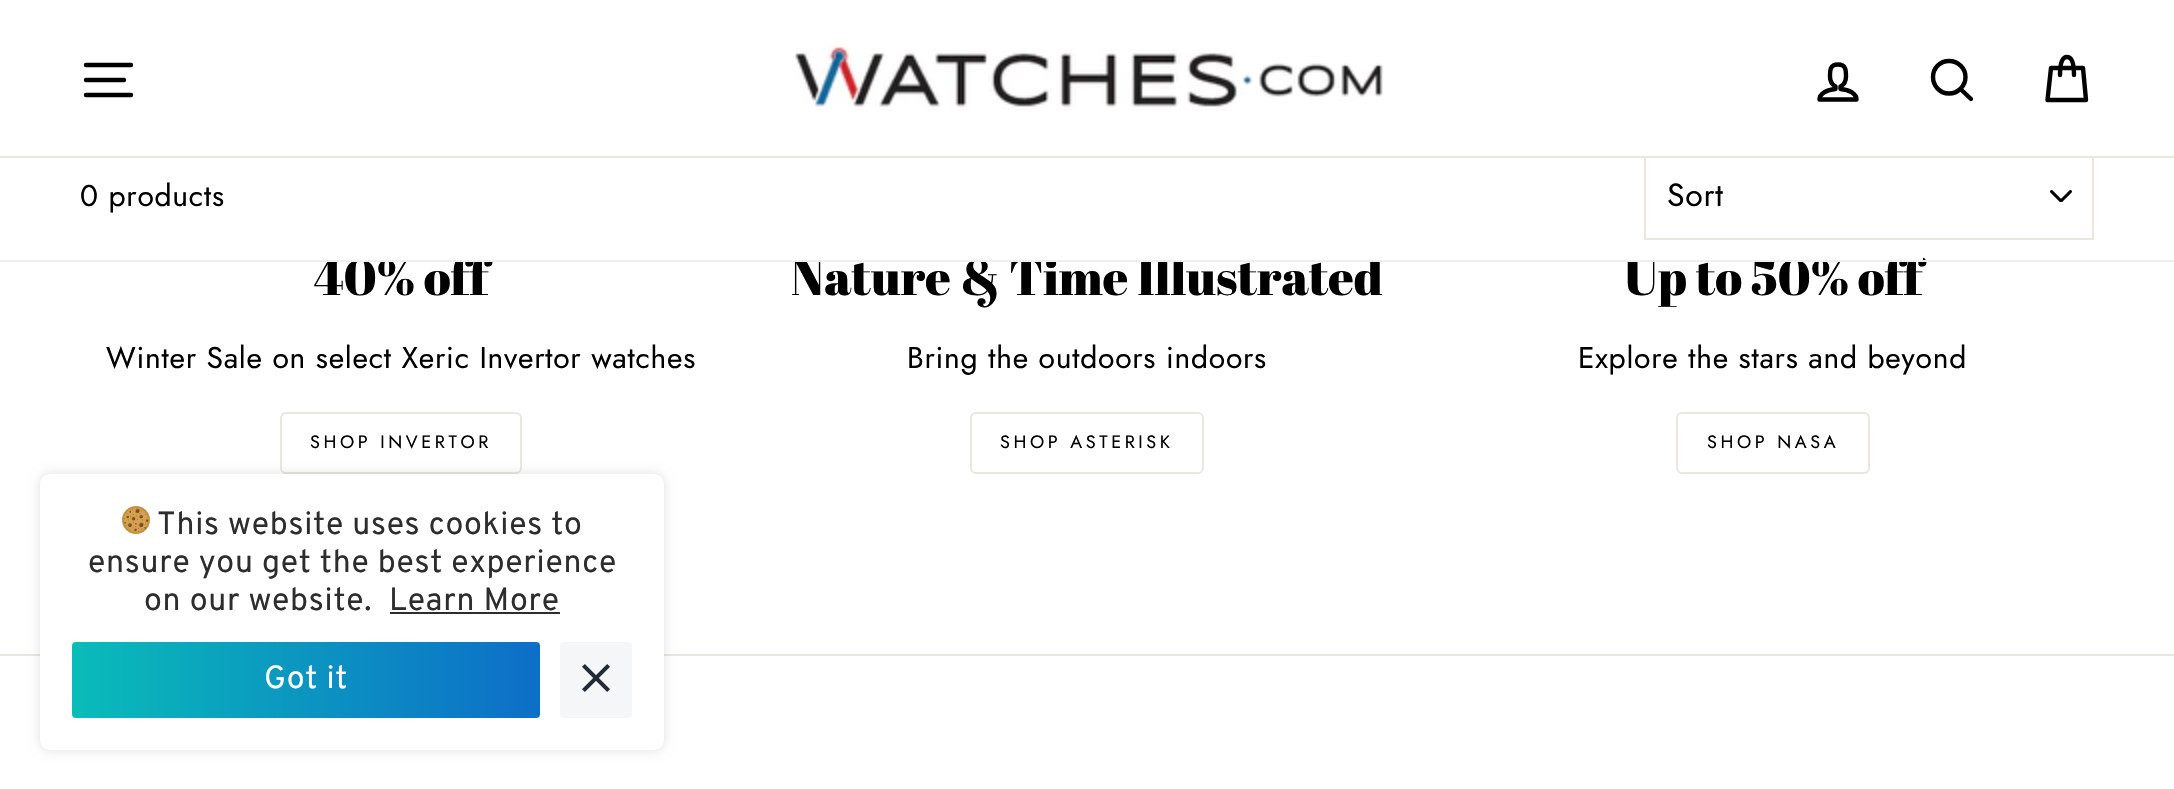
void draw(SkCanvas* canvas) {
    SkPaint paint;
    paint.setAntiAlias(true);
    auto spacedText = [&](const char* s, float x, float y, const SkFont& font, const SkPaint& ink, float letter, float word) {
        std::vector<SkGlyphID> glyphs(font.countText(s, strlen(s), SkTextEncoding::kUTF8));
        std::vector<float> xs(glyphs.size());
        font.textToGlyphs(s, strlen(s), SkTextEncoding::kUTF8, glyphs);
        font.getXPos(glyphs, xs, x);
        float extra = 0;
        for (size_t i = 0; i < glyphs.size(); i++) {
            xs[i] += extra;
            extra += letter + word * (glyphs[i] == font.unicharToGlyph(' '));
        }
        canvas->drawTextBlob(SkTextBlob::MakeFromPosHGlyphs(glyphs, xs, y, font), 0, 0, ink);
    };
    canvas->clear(0xFFFFFFFF);
    canvas->drawImageRect(SkImages::DeferredFromEncodedData(SkData::MakeFromFileName("img2.png")), SkRect::MakeXYWH(2050, 190, 22, 12), SkSamplingOptions());
    paint.setStyle(SkPaint::kStroke_Style);
    paint.setStrokeWidth(2);
    paint.setColor(0xFFE8E8E1);
    canvas->drawRect(SkRect::MakeXYWH(1645, 153, 448, 86), paint);
    paint.setStyle(SkPaint::kFill_Style);
    paint.setColor(0xFFFFFFFF);
    canvas->drawRect(SkRect::MakeXYWH(1644, 152, 450, 4), paint);
    paint.setColor(0xFFE8E8E1);
    canvas->drawRect(SkRect::MakeXYWH(0, 156, 2174, 2), paint);
    paint.setStyle(SkPaint::kStroke_Style);
    paint.setStrokeWidth(4.4f);
    paint.setStrokeCap(SkPaint::kRound_Cap);
    paint.setStrokeJoin(SkPaint::kRound_Join);
    paint.setColor(0xFF000000);
    canvas->drawPath(SkPathBuilder().moveTo(86, 65).lineTo(131, 65).moveTo(86, 80).lineTo(124, 80).moveTo(86, 95).lineTo(131, 95).detach(), paint);
    canvas->drawImageRect(SkImages::DeferredFromEncodedData(SkData::MakeFromFileName("img1.png")), SkRect::MakeXYWH(795, 45, 588, 66), SkSamplingOptions());
    canvas->drawPath(SkPathBuilder().moveTo(1840.5f, 89).lineTo(1840.5f, 86.5f).cubicTo(1843.5f, 85, 1846, 81, 1846, 76.5f).cubicTo(1846, 70, 1846, 64.5f, 1838, 64.5f).cubicTo(1830, 64.5f, 1830, 70, 1830, 76.5f).cubicTo(1830, 81, 1832.5f, 85, 1835.5f, 86.5f).lineTo(1835.5f, 89).cubicTo(1826.5f, 89.5f, 1819.5f, 94, 1819.5f, 99.5f).lineTo(1856.5f, 99.5f).cubicTo(1856.5f, 94, 1849.5f, 89.5f, 1840.5f, 89).close().detach(), paint);
    canvas->drawPath(SkPathBuilder().moveTo(1965.5f, 77).cubicTo(1965.5f, 86, 1958, 93.5f, 1949, 93.5f).cubicTo(1940, 93.5f, 1933, 86, 1933, 77).cubicTo(1933, 68, 1940, 61, 1949, 61).cubicTo(1958, 61, 1965.5f, 68, 1965.5f, 77).close().moveTo(1971, 99).lineTo(1960.5f, 89).detach(), paint);
    canvas->drawPath(SkPathBuilder().moveTo(2060, 75).cubicTo(2060, 61, 2063, 57, 2067, 57).cubicTo(2071, 57, 2074, 61, 2074, 75).moveTo(2051, 68).lineTo(2083, 68).lineTo(2086, 100).lineTo(2047.5f, 100).close().detach(), paint);
    SkFont font1(fontMgr->matchFamilyStyle("Abril Fatface", SkFontStyle::Normal()), 49.5f);
    font1.setSubpixel(true);
    paint.setStyle(SkPaint::kFill_Style);
    canvas->drawString("40% off", 314, 295, font1, paint);
    canvas->drawString("Nature & Time Illustrated", 791, 295, font1, paint);
    canvas->drawString("Up to 50% off", 1624, 295, font1, paint);
    paint.setColor(0xFFFFFFFF);
    canvas->drawRect(SkRect::MakeXYWH(358, 256, 1565, 4), paint);
    paint.setColor(0xFFEEEEEE);
    canvas->drawRect(SkRect::MakeXYWH(0, 260, 2174, 2), paint);
    SkFont font2(fontMgr->matchFamilyStyle("Jost", SkFontStyle::Normal()), 30);
    font2.setSubpixel(true);
    paint.setColor(0xFF000000);
    spacedText("0 products", 80, 206, font2, paint, 0.75f, 0);
    SkFont font3(fontMgr->matchFamilyStyle("Jost", SkFontStyle::Normal()), 32);
    font3.setSubpixel(true);
    spacedText("Sort", 1667, 206, font3, paint, 0.75f, 0);
    spacedText("Winter Sale on select Xeric Invertor watches", 106, 368, font2, paint, 0.75f, 0);
    paint.setStyle(SkPaint::kStroke_Style);
    paint.setStrokeWidth(2);
    paint.setStrokeCap(SkPaint::kButt_Cap);
    paint.setStrokeJoin(SkPaint::kMiter_Join);
    paint.setColor(0xFFE8E8E1);
    canvas->drawRoundRect(SkRect::MakeXYWH(281, 413, 240, 60), 5, 5, paint);
    SkFont font4(fontMgr->matchFamilyStyle("Jost", SkFontStyle::Normal()), 18);
    font4.setSubpixel(true);
    paint.setStyle(SkPaint::kFill_Style);
    paint.setColor(0xFF000000);
    spacedText("SHOP INVERTOR", 310, 448, font4, paint, 3.6f, 0);
    spacedText("Bring the outdoors indoors", 907, 368, font2, paint, 0.75f, 0);
    paint.setStyle(SkPaint::kStroke_Style);
    paint.setColor(0xFFE8E8E1);
    canvas->drawRoundRect(SkRect::MakeXYWH(971, 413, 232, 60), 5, 5, paint);
    paint.setStyle(SkPaint::kFill_Style);
    paint.setColor(0xFF000000);
    spacedText("SHOP ASTERISK", 1000, 448, font4, paint, 3.6f, 0);
    spacedText("Explore the stars and beyond", 1578, 368, font2, paint, 0.75f, 0);
    paint.setStyle(SkPaint::kStroke_Style);
    paint.setColor(0xFFE8E8E1);
    canvas->drawRoundRect(SkRect::MakeXYWH(1677, 413, 192, 60), 5, 5, paint);
    paint.setStyle(SkPaint::kFill_Style);
    paint.setColor(0xFF000000);
    spacedText("SHOP NASA", 1707, 448, font4, paint, 3.6f, 0);
    paint.setColor(0xFFE8E8E1);
    canvas->drawRect(SkRect::MakeXYWH(0, 654, 2174, 2), paint);
    paint.setColor(0xFFFFFFFF);
    canvas->drawRoundRect(SkRect::MakeXYWH(40, 474, 624, 276), 10, 10, paint);
    canvas->save();
    canvas->clipPath(SkPathBuilder(SkPathFillType::kEvenOdd).moveTo(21, 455).lineTo(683, 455).lineTo(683, 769).lineTo(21, 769).close().moveTo(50, 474).lineTo(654, 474).cubicTo(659.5f, 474, 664, 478.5f, 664, 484).lineTo(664, 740).cubicTo(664, 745.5f, 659.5f, 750, 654, 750).lineTo(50, 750).cubicTo(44.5f, 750, 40, 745.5f, 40, 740).lineTo(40, 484).cubicTo(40, 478.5f, 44.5f, 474, 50, 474).close().detach(), true);
    paint.setColor(0x1F000000);
    paint.setMaskFilter(SkMaskFilter::MakeBlur(kNormal_SkBlurStyle, 6));
    canvas->drawRoundRect(SkRect::MakeXYWH(40, 474, 624, 276), 10, 10, paint);
    paint.setMaskFilter(nullptr);
    canvas->restore();
    canvas->drawImageRect(SkImages::DeferredFromEncodedData(SkData::MakeFromFileName("img3.png")), SkRect::MakeXYWH(122, 506, 28, 28), SkSamplingOptions());
    SkFont font5(fontMgr->matchFamilyStyle("Overpass", SkFontStyle::Normal()), 32);
    font5.setSubpixel(true);
    paint.setColor(0xFF2D2D2D);
    spacedText("This website uses cookies to", 157, 534, font5, paint, 0.75f, 0);
    spacedText("ensure you get the best experience", 88, 572, font5, paint, 0.75f, 0);
    spacedText("on our website.", 144, 610, font5, paint, 0.75f, 0);
    spacedText("Learn More", 389, 610, font5, paint, 0.75f, 0);
    canvas->drawRect(SkRect::MakeXYWH(390, 612, 170, 2), paint);
    {
        const SkColor colors[] = {0xFF09BCB9, 0xFF0D6EC8};
        const float stops[] = {0, 1};
        const SkPoint ends[] = {{72, 680}, {540, 680}};
        paint.setShader(SkGradientShader::MakeLinear(ends, colors, stops, 2, SkTileMode::kClamp));
        paint.setAlpha(255);
    }
    canvas->drawRoundRect(SkRect::MakeXYWH(72, 642, 468, 76), 4, 4, paint);
    paint.setShader(nullptr);
    paint.setColor(0xFFFFFFFF);
    spacedText("Got it", 264, 688, font5, paint, 0.75f, 0);
    paint.setColor(0xFFF4F6F8);
    canvas->drawRoundRect(SkRect::MakeXYWH(560, 642, 72, 76), 4, 4, paint);
    canvas->drawImageRect(SkImages::DeferredFromEncodedData(SkData::MakeFromFileName("img4.png")), SkRect::MakeXYWH(582, 664, 28, 28), SkSamplingOptions());
}
